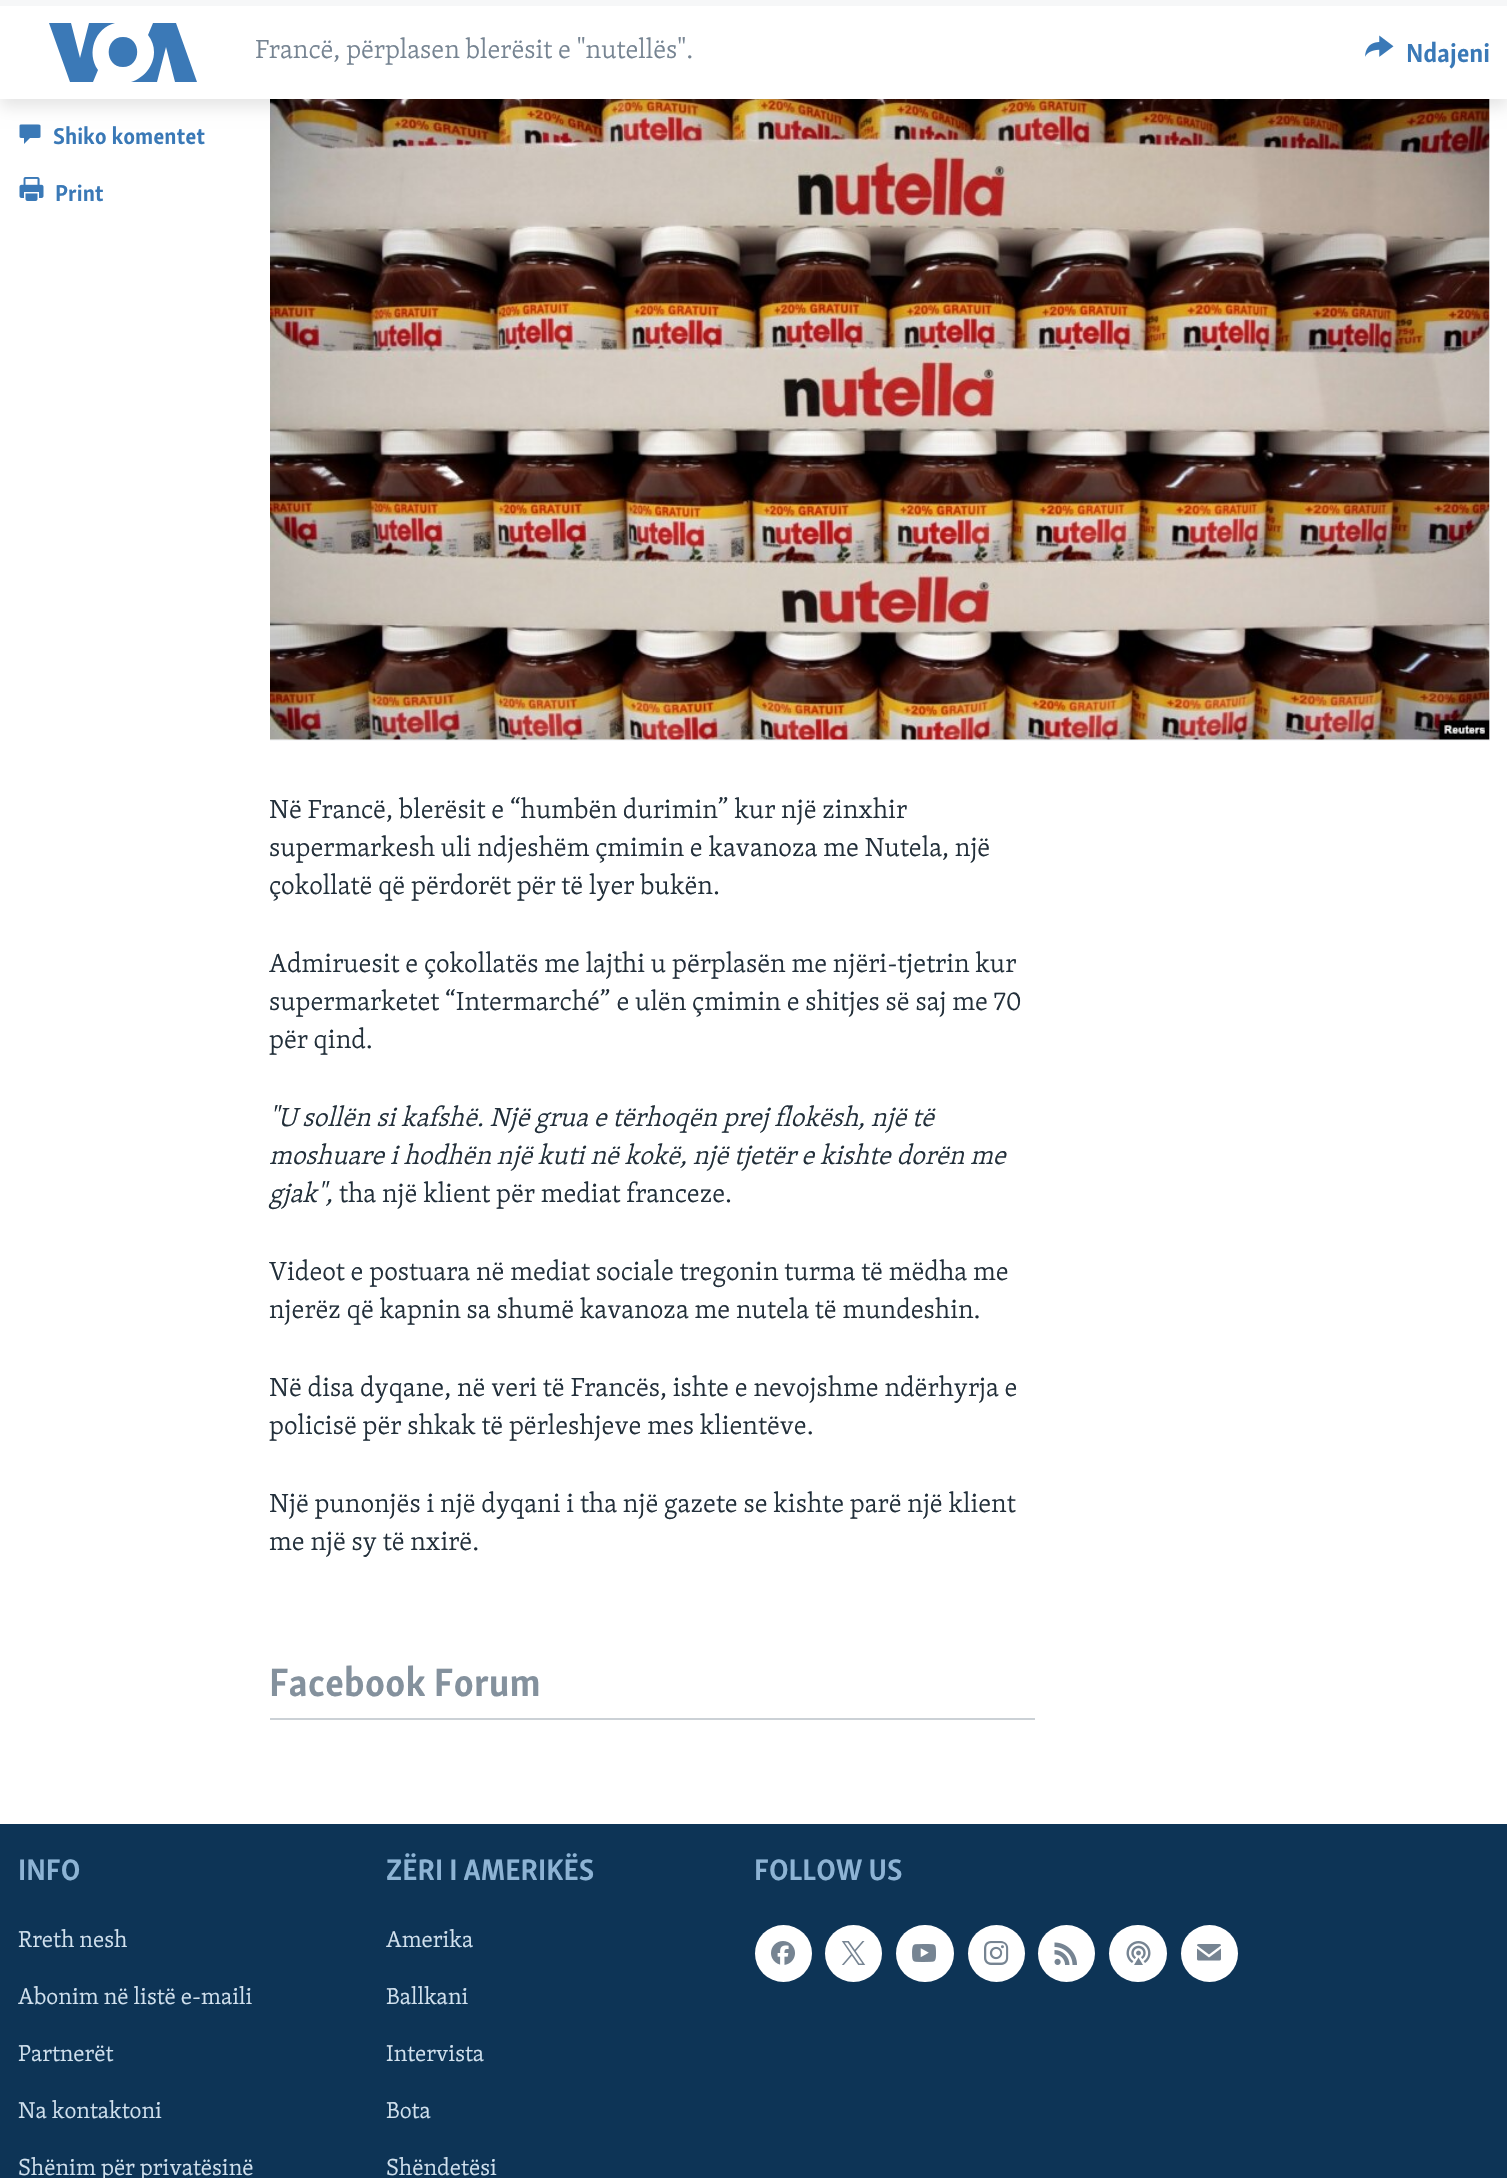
void draw(SkCanvas* canvas) {
    SkPaint paint;
    paint.setAntiAlias(true);
    canvas->clear(0xFFFFFFFF);
    canvas->drawImageRect(SkImages::DeferredFromEncodedData(SkData::MakeFromFileName("img2.png")), SkRect::MakeXYWH(19, 124, 22, 20), SkSamplingOptions());
    paint.setColor(0xFFF6F7F8);
    canvas->drawRect(SkRect::MakeXYWH(270, 99, 1220, 642), paint);
    canvas->drawImageRect(SkImages::DeferredFromEncodedData(SkData::MakeFromFileName("img4.png")), SkRect::MakeXYWH(270, 99, 1220, 641), SkSamplingOptions());
    paint.setColor(0x1A000000);
    paint.setMaskFilter(SkMaskFilter::MakeBlur(kNormal_SkBlurStyle, 7.5f));
    canvas->drawRect(SkRect::MakeXYWH(0, 8, 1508, 99), paint);
    paint.setMaskFilter(nullptr);
    paint.setColor(0xFFFFFFFF);
    canvas->drawRect(SkRect::MakeXYWH(0, 6, 1507, 93), paint);
    paint.setColor(0xFFF6F7F8);
    canvas->drawRect(SkRect::MakeXYWH(0, 0, 1507, 6), paint);
    paint.setColor(0xFF3B79B7);
    canvas->drawPath(SkPathBuilder().moveTo(98, 70).lineTo(93, 82).lineTo(70, 82).lineTo(49, 23).lineTo(71, 23).lineTo(80, 58).lineTo(89, 23).lineTo(115, 23).cubicTo(95, 28, 86, 53, 98, 70).close().moveTo(123, 37).cubicTo(104, 37, 104, 67, 123, 67).cubicTo(142, 67, 142, 37, 123, 37).close().moveTo(154, 52).cubicTo(154, 66, 144, 78, 131, 82).lineTo(157, 82).lineTo(166, 47).lineTo(175, 82).lineTo(197, 82).lineTo(176, 23).lineTo(153, 23).lineTo(148, 35).cubicTo(152, 40, 154, 46, 154, 52).close().detach(), paint);
    SkFont font1(fontMgr->matchFamilyStyle("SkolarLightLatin", SkFontStyle(300, SkFontStyle::kNormal_Width, SkFontStyle::kUpright_Slant)), 27);
    font1.setSubpixel(true);
    paint.setColor(0xFF768492);
    canvas->drawString("Francë, përplasen blerësit e \"nutellës\".", 255, 58, font1, paint);
    canvas->drawImageRect(SkImages::DeferredFromEncodedData(SkData::MakeFromFileName("img1.png")), SkRect::MakeXYWH(1365, 35, 29, 22), SkSamplingOptions());
    SkFont font2(fontMgr->matchFamilyStyle("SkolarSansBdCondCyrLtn", SkFontStyle::Bold()), 27);
    font2.setSubpixel(true);
    paint.setColor(0xFF3A79B7);
    canvas->drawString("Ndajeni", 1406, 62, font2, paint);
    SkFont font3(fontMgr->matchFamilyStyle("SkolarSansBdCondCyrLtn", SkFontStyle::Bold()), 23.6f);
    font3.setSubpixel(true);
    canvas->drawString("Shiko komentet", 53, 144, font3, paint);
    canvas->drawImageRect(SkImages::DeferredFromEncodedData(SkData::MakeFromFileName("img3.png")), SkRect::MakeXYWH(19, 177, 25, 24), SkSamplingOptions());
    canvas->drawString("Print", 55, 201, font3, paint);
    paint.setColor(0xFF222F3A);
    canvas->drawString("Në Francë, blerësit e “humbën durimin” kur një zinxhir", 269, 818, font1, paint);
    canvas->drawString("supermarkesh uli ndjeshëm çmimin e kavanoza me Nutela, një", 269, 856, font1, paint);
    canvas->drawString("çokollatë që përdorët për të lyer bukën.", 269, 894, font1, paint);
    canvas->drawString("Admiruesit e çokollatës me lajthi u përplasën me njëri-tjetrin kur", 269, 972, font1, paint);
    canvas->drawString("supermarketet “Intermarché” e ulën çmimin e shitjes së saj me 70", 269, 1010, font1, paint);
    canvas->drawString("për qind.", 269, 1048, font1, paint);
    SkFont font4(fontMgr->matchFamilyStyle("SkolarLightLatin", SkFontStyle(300, SkFontStyle::kNormal_Width, SkFontStyle::kItalic_Slant)), 27);
    font4.setSubpixel(true);
    canvas->drawString("\"U sollën si kafshë. Një grua e tërhoqën prej flokësh, një të", 269, 1126, font4, paint);
    canvas->drawString("moshuare i hodhën një kuti në kokë, një tjetër e kishte dorën me", 269, 1164, font4, paint);
    canvas->drawString("gjak\",", 269, 1202, font4, paint);
    canvas->drawString("tha një klient për mediat franceze.", 339, 1202, font1, paint);
    canvas->drawString("Videot e postuara në mediat sociale tregonin turma të mëdha me", 269, 1280, font1, paint);
    canvas->drawString("njerëz që kapnin sa shumë kavanoza me nutela të mundeshin.", 269, 1318, font1, paint);
    canvas->drawString("Në disa dyqane, në veri të Francës, ishte e nevojshme ndërhyrja e", 269, 1396, font1, paint);
    canvas->drawString("policisë për shkak të përleshjeve mes klientëve.", 269, 1434, font1, paint);
    canvas->drawString("Një punonjës i një dyqani i tha një gazete se kishte parë një klient", 269, 1512, font1, paint);
    canvas->drawString("me një sy të nxirë.", 269, 1550, font1, paint);
    paint.setColor(0xFFCBD1D6);
    canvas->drawRect(SkRect::MakeXYWH(270, 1718, 765, 2), paint);
    SkFont font5(fontMgr->matchFamilyStyle("SkolarSansBdCondCyrLtn", SkFontStyle::Bold()), 40.5f);
    font5.setSubpixel(true);
    paint.setColor(0xFF84919D);
    canvas->drawString("Facebook Forum", 269, 1696, font5, paint);
    paint.setColor(0xFF0D3456);
    canvas->drawRect(SkRect::MakeXYWH(0, 1824, 1507, 354), paint);
    SkFont font6(fontMgr->matchFamilyStyle("SkolarSansBdCondCyrLtn", SkFontStyle::Bold()), 30.5f);
    font6.setSubpixel(true);
    paint.setColor(0xFF8DB3D4);
    canvas->drawString("INFO", 18, 1880, font6, paint);
    SkFont font7(fontMgr->matchFamilyStyle("SkolarLightLatin", SkFontStyle(300, SkFontStyle::kNormal_Width, SkFontStyle::kUpright_Slant)), 23.6f);
    font7.setSubpixel(true);
    paint.setColor(0xFFD1E1EE);
    canvas->drawString("Rreth nesh", 18, 1947, font7, paint);
    canvas->drawString("Abonim në listë e-maili", 18, 2004, font7, paint);
    canvas->drawString("Partnerët", 18, 2061, font7, paint);
    canvas->drawString("Na kontaktoni", 18, 2118, font7, paint);
    canvas->drawString("Shënim për privatësinë", 18, 2175, font7, paint);
    paint.setColor(0xFF8DB3D4);
    canvas->drawString("ZËRI I AMERIKËS", 386, 1880, font6, paint);
    paint.setColor(0xFFD1E1EE);
    canvas->drawString("Amerika", 386, 1947, font7, paint);
    canvas->drawString("Ballkani", 386, 2004, font7, paint);
    canvas->drawString("Intervista", 386, 2061, font7, paint);
    canvas->drawString("Bota", 386, 2118, font7, paint);
    canvas->drawString("Shëndetësi", 386, 2175, font7, paint);
    paint.setColor(0xFF8DB3D4);
    canvas->drawString("FOLLOW US", 754, 1880, font6, paint);
    paint.setColor(0xFFFFFFFF);
    canvas->drawCircle(783.5f, 1953.5f, 28.5f, paint);
    canvas->drawImageRect(SkImages::DeferredFromEncodedData(SkData::MakeFromFileName("img5.png")), SkRect::MakeXYWH(771, 1941, 24, 24), SkSamplingOptions());
    canvas->drawCircle(853.5f, 1953.5f, 28.5f, paint);
    canvas->drawImageRect(SkImages::DeferredFromEncodedData(SkData::MakeFromFileName("img6.png")), SkRect::MakeXYWH(841, 1941, 25, 24), SkSamplingOptions());
    canvas->drawRoundRect(SkRect::MakeXYWH(896, 1925, 58, 57), 28.5f, 28.5f, paint);
    canvas->drawImageRect(SkImages::DeferredFromEncodedData(SkData::MakeFromFileName("img7.png")), SkRect::MakeXYWH(912, 1944, 24, 18), SkSamplingOptions());
    canvas->drawCircle(996.5f, 1953.5f, 28.5f, paint);
    canvas->drawImageRect(SkImages::DeferredFromEncodedData(SkData::MakeFromFileName("img8.png")), SkRect::MakeXYWH(984, 1941, 25, 24), SkSamplingOptions());
    canvas->drawCircle(1066.5f, 1953.5f, 28.5f, paint);
    canvas->drawImageRect(SkImages::DeferredFromEncodedData(SkData::MakeFromFileName("img9.png")), SkRect::MakeXYWH(1054, 1942, 23, 23), SkSamplingOptions());
    canvas->drawRoundRect(SkRect::MakeXYWH(1109, 1925, 58, 57), 28.5f, 28.5f, paint);
    canvas->drawImageRect(SkImages::DeferredFromEncodedData(SkData::MakeFromFileName("img10.png")), SkRect::MakeXYWH(1126, 1941, 25, 24), SkSamplingOptions());
    canvas->drawCircle(1209.5f, 1953.5f, 28.5f, paint);
    canvas->drawImageRect(SkImages::DeferredFromEncodedData(SkData::MakeFromFileName("img11.png")), SkRect::MakeXYWH(1197, 1944, 24, 17), SkSamplingOptions());
}
